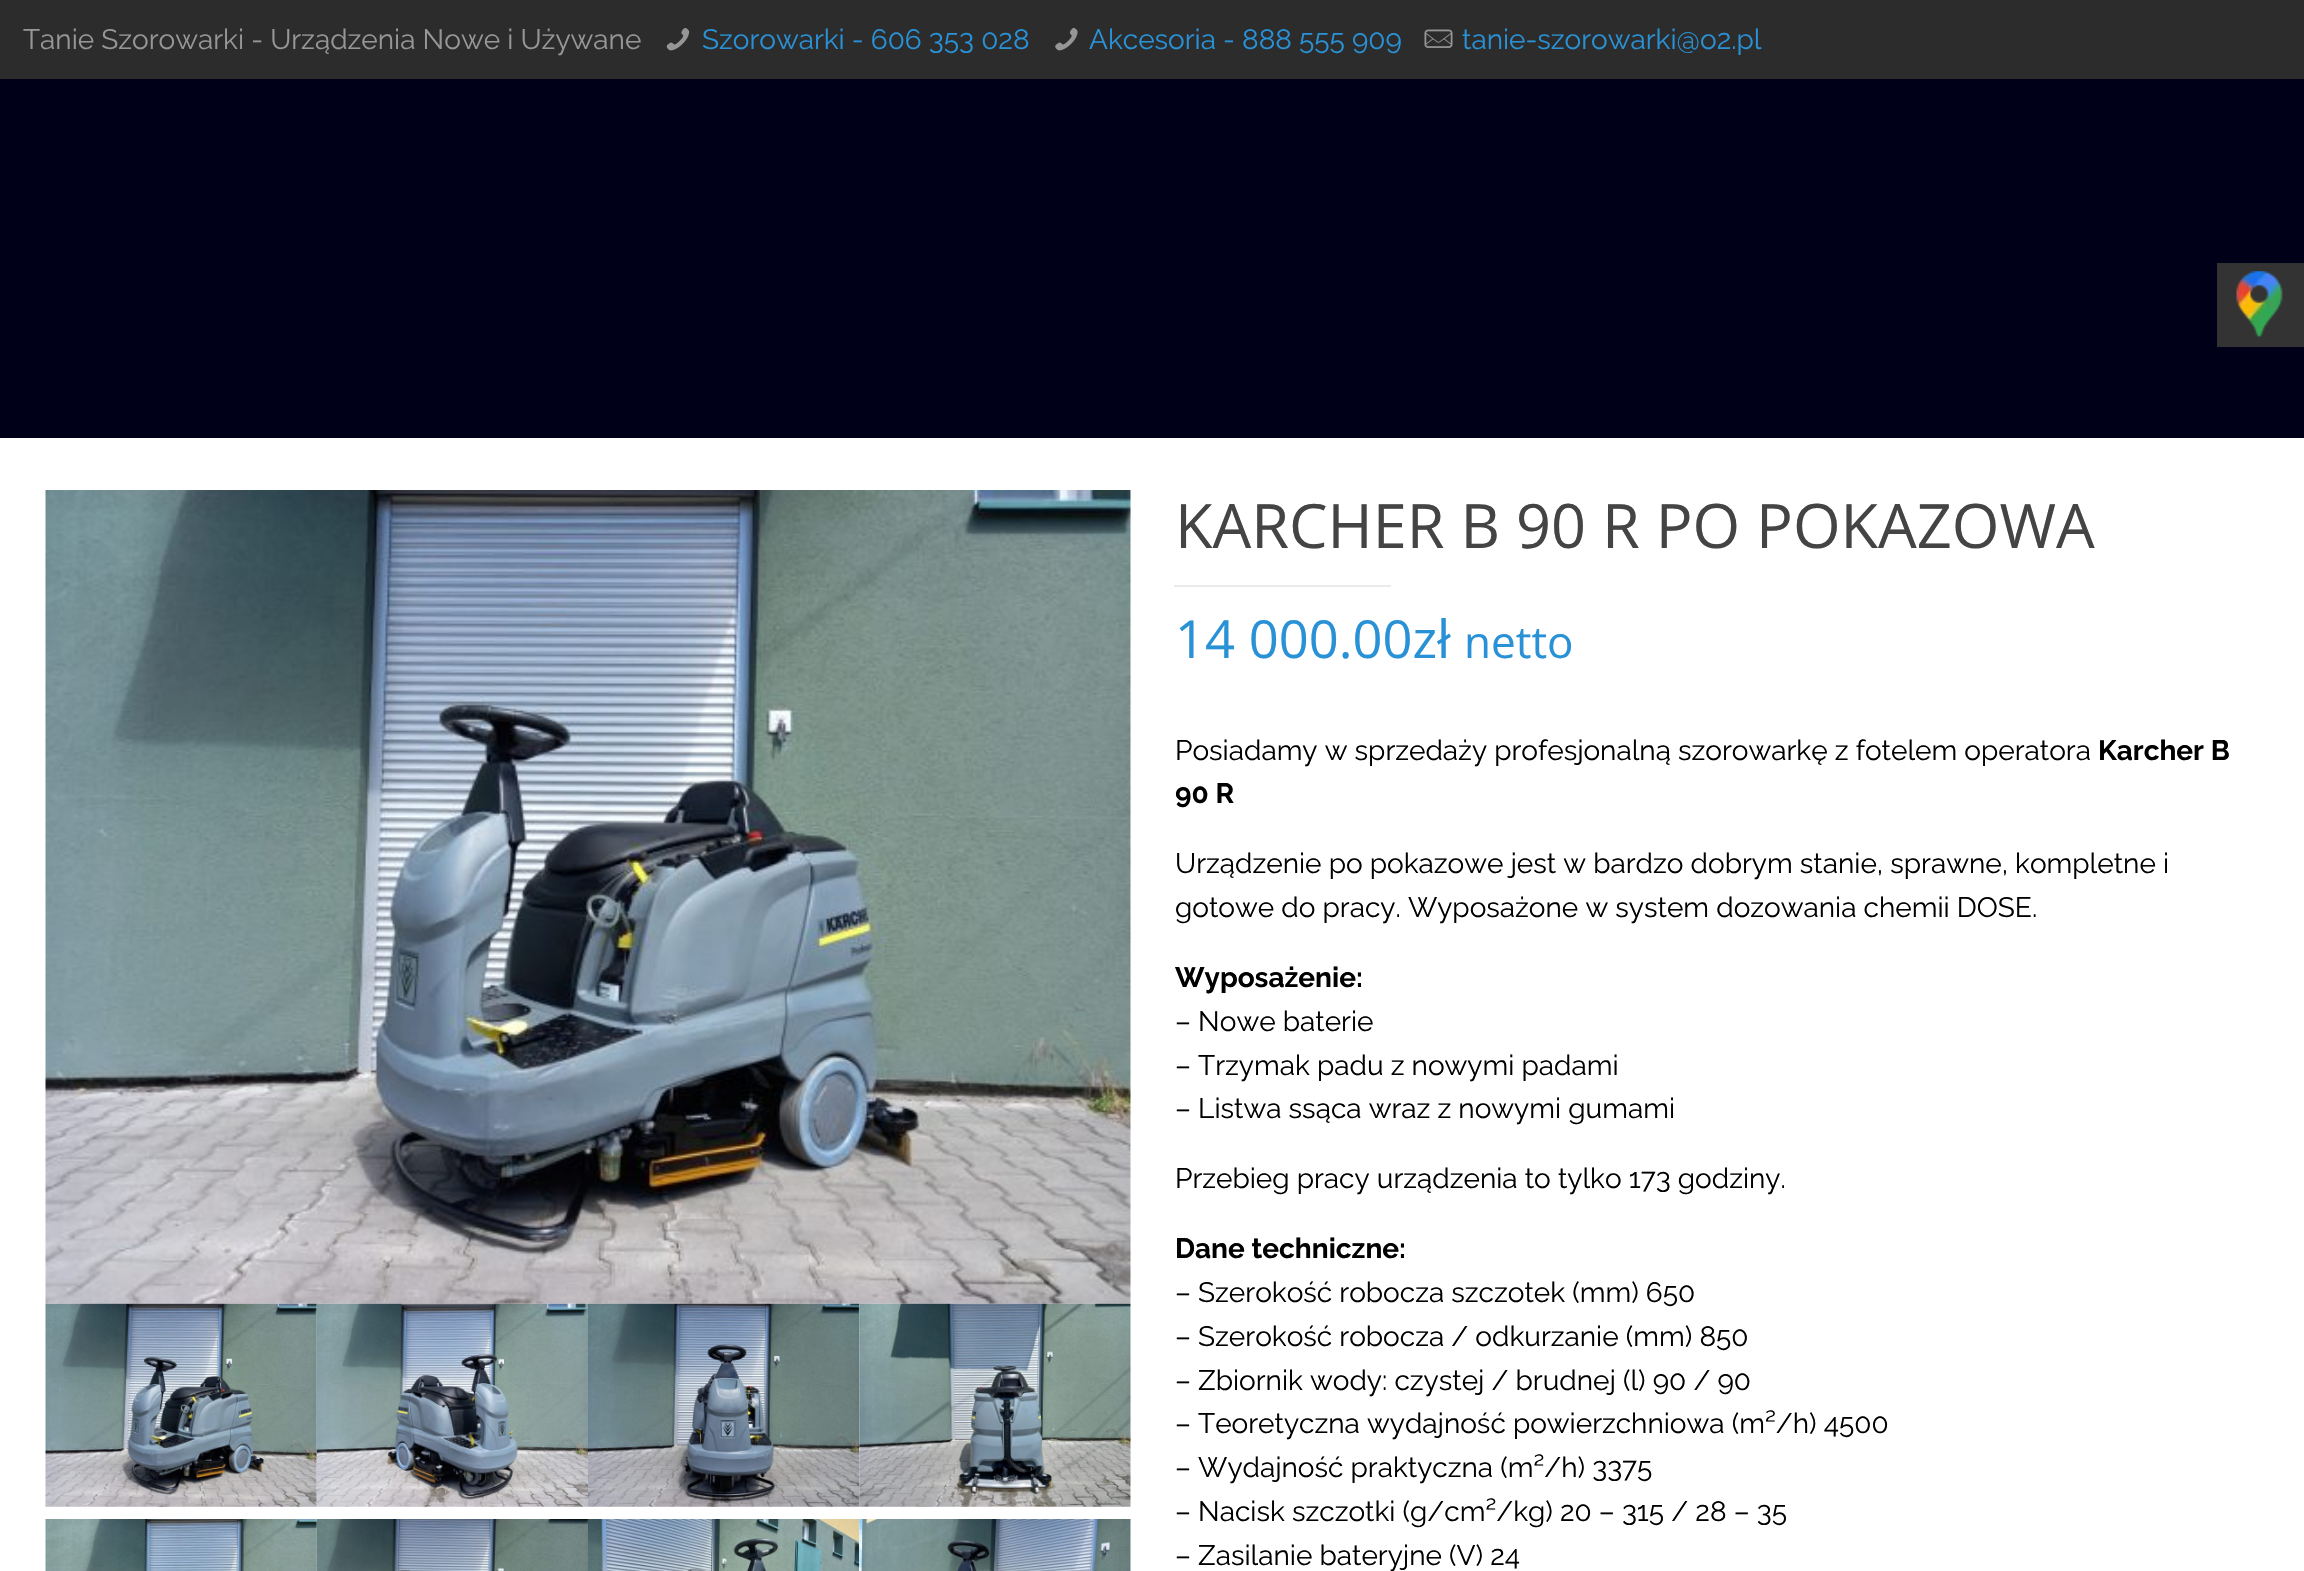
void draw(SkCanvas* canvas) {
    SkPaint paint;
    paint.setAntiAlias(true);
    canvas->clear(0xFFFFFFFF);
    paint.setColor(0xFF000119);
    canvas->drawRect(SkRect::MakeXYWH(0, 79, 2304, 359), paint);
    paint.setColor(0xFF2C2C2C);
    canvas->drawRect(SkRect::MakeXYWH(0, 0, 2304, 79), paint);
    SkFont font1(fontMgr->matchFamilyStyle("Raleway", SkFontStyle::Normal()), 28);
    font1.setSubpixel(true);
    paint.setColor(0xFF969696);
    canvas->drawString("Tanie Szorowarki - Urządzenia Nowe i Używane", 23, 49, font1, paint);
    canvas->drawImageRect(SkImages::DeferredFromEncodedData(SkData::MakeFromFileName("img1.png")), SkRect::MakeXYWH(666, 28, 24, 23), SkSamplingOptions());
    paint.setColor(0xFF2991D6);
    canvas->drawString("Szorowarki - 606 353 028", 702, 49, font1, paint);
    canvas->drawImageRect(SkImages::DeferredFromEncodedData(SkData::MakeFromFileName("img2.png")), SkRect::MakeXYWH(1055, 28, 23, 23), SkSamplingOptions());
    canvas->drawString("Akcesoria - 888 555 909", 1089, 49, font1, paint);
    canvas->drawImageRect(SkImages::DeferredFromEncodedData(SkData::MakeFromFileName("img3.png")), SkRect::MakeXYWH(1424, 29, 29, 19), SkSamplingOptions());
    canvas->drawString("tanie-szorowarki@o2.pl", 1462, 49, font1, paint);
    canvas->drawImageRect(SkImages::DeferredFromEncodedData(SkData::MakeFromFileName("img4.png")), SkRect::MakeXYWH(45, 490, 1086, 814), SkSamplingOptions());
    canvas->drawImageRect(SkImages::DeferredFromEncodedData(SkData::MakeFromFileName("img5.png")), SkRect::MakeXYWH(45, 1303, 272, 204), SkSamplingOptions());
    canvas->drawImageRect(SkImages::DeferredFromEncodedData(SkData::MakeFromFileName("img6.png")), SkRect::MakeXYWH(316, 1303, 272, 204), SkSamplingOptions());
    canvas->drawImageRect(SkImages::DeferredFromEncodedData(SkData::MakeFromFileName("img7.png")), SkRect::MakeXYWH(588, 1303, 272, 204), SkSamplingOptions());
    canvas->drawImageRect(SkImages::DeferredFromEncodedData(SkData::MakeFromFileName("img8.png")), SkRect::MakeXYWH(859, 1303, 272, 204), SkSamplingOptions());
    canvas->drawImageRect(SkImages::DeferredFromEncodedData(SkData::MakeFromFileName("img9.png")), SkRect::MakeXYWH(45, 1519, 272, 52), SkSamplingOptions());
    canvas->drawImageRect(SkImages::DeferredFromEncodedData(SkData::MakeFromFileName("img10.png")), SkRect::MakeXYWH(316, 1519, 272, 52), SkSamplingOptions());
    canvas->drawImageRect(SkImages::DeferredFromEncodedData(SkData::MakeFromFileName("img11.png")), SkRect::MakeXYWH(588, 1519, 272, 52), SkSamplingOptions());
    canvas->drawImageRect(SkImages::DeferredFromEncodedData(SkData::MakeFromFileName("img12.png")), SkRect::MakeXYWH(859, 1519, 272, 52), SkSamplingOptions());
    SkFont font2(fontMgr->matchFamilyStyle("Open Sans", SkFontStyle::Normal()), 61.25f);
    font2.setSubpixel(true);
    paint.setColor(0xFF444444);
    canvas->drawString("KARCHER B 90 R PO POKAZOWA", 1175, 548, font2, paint);
    paint.setColor(0xFFEBEBEB);
    canvas->drawRect(SkRect::MakeXYWH(1174, 585, 217, 2), paint);
    SkFont font3(fontMgr->matchFamilyStyle("Open Sans", SkFontStyle::Normal()), 52.5f);
    font3.setSubpixel(true);
    paint.setColor(0xFF2991D6);
    canvas->drawString("14 000.00zł", 1175, 658, font3, paint);
    SkFont font4(fontMgr->matchFamilyStyle("Open Sans", SkFontStyle::Normal()), 44);
    font4.setSubpixel(true);
    canvas->drawString("netto", 1464, 658, font4, paint);
    paint.setColor(0xFF000000);
    canvas->drawString("Posiadamy w sprzedaży profesjonalną szorowarkę z fotelem operatora", 1175, 760, font1, paint);
    SkFont font5(fontMgr->matchFamilyStyle("Raleway", SkFontStyle::Bold()), 28);
    font5.setSubpixel(true);
    canvas->drawString("Karcher B", 2098, 760, font5, paint);
    canvas->drawString("90 R", 1175, 803, font5, paint);
    canvas->drawString("Urządzenie po pokazowe jest w bardzo dobrym stanie, sprawne, kompletne i", 1175, 873, font1, paint);
    canvas->drawString("gotowe do pracy. Wyposażone w system dozowania chemii DOSE.", 1175, 917, font1, paint);
    canvas->drawString("Wyposażenie:", 1175, 987, font5, paint);
    canvas->drawString("– Nowe baterie", 1175, 1031, font1, paint);
    canvas->drawString("– Trzymak padu z nowymi padami", 1175, 1075, font1, paint);
    canvas->drawString("– Listwa ssąca wraz z nowymi gumami", 1175, 1118, font1, paint);
    canvas->drawString("Przebieg pracy urządzenia to tylko 173 godziny.", 1175, 1188, font1, paint);
    canvas->drawString("Dane techniczne:", 1175, 1258, font5, paint);
    canvas->drawString("– Szerokość robocza szczotek (mm) 650", 1175, 1302, font1, paint);
    canvas->drawString("– Szerokość robocza / odkurzanie (mm) 850", 1175, 1346, font1, paint);
    canvas->drawString("– Zbiornik wody: czystej / brudnej (l) 90 / 90", 1175, 1390, font1, paint);
    canvas->drawString("– Teoretyczna wydajność powierzchniowa (m²/h) 4500", 1175, 1433, font1, paint);
    canvas->drawString("– Wydajność praktyczna (m²/h) 3375", 1175, 1477, font1, paint);
    canvas->drawString("– Nacisk szczotki (g/cm²/kg) 20 – 315 / 28 – 35", 1175, 1521, font1, paint);
    canvas->drawString("– Zasilanie bateryjne (V) 24", 1175, 1565, font1, paint);
    paint.setColor(0xFF333333);
    canvas->drawRect(SkRect::MakeXYWH(2217, 263, 87, 84), paint);
    canvas->drawImageRect(SkImages::DeferredFromEncodedData(SkData::MakeFromFileName("img13.png")), SkRect::MakeXYWH(2236, 271, 47, 67), SkSamplingOptions());
}
